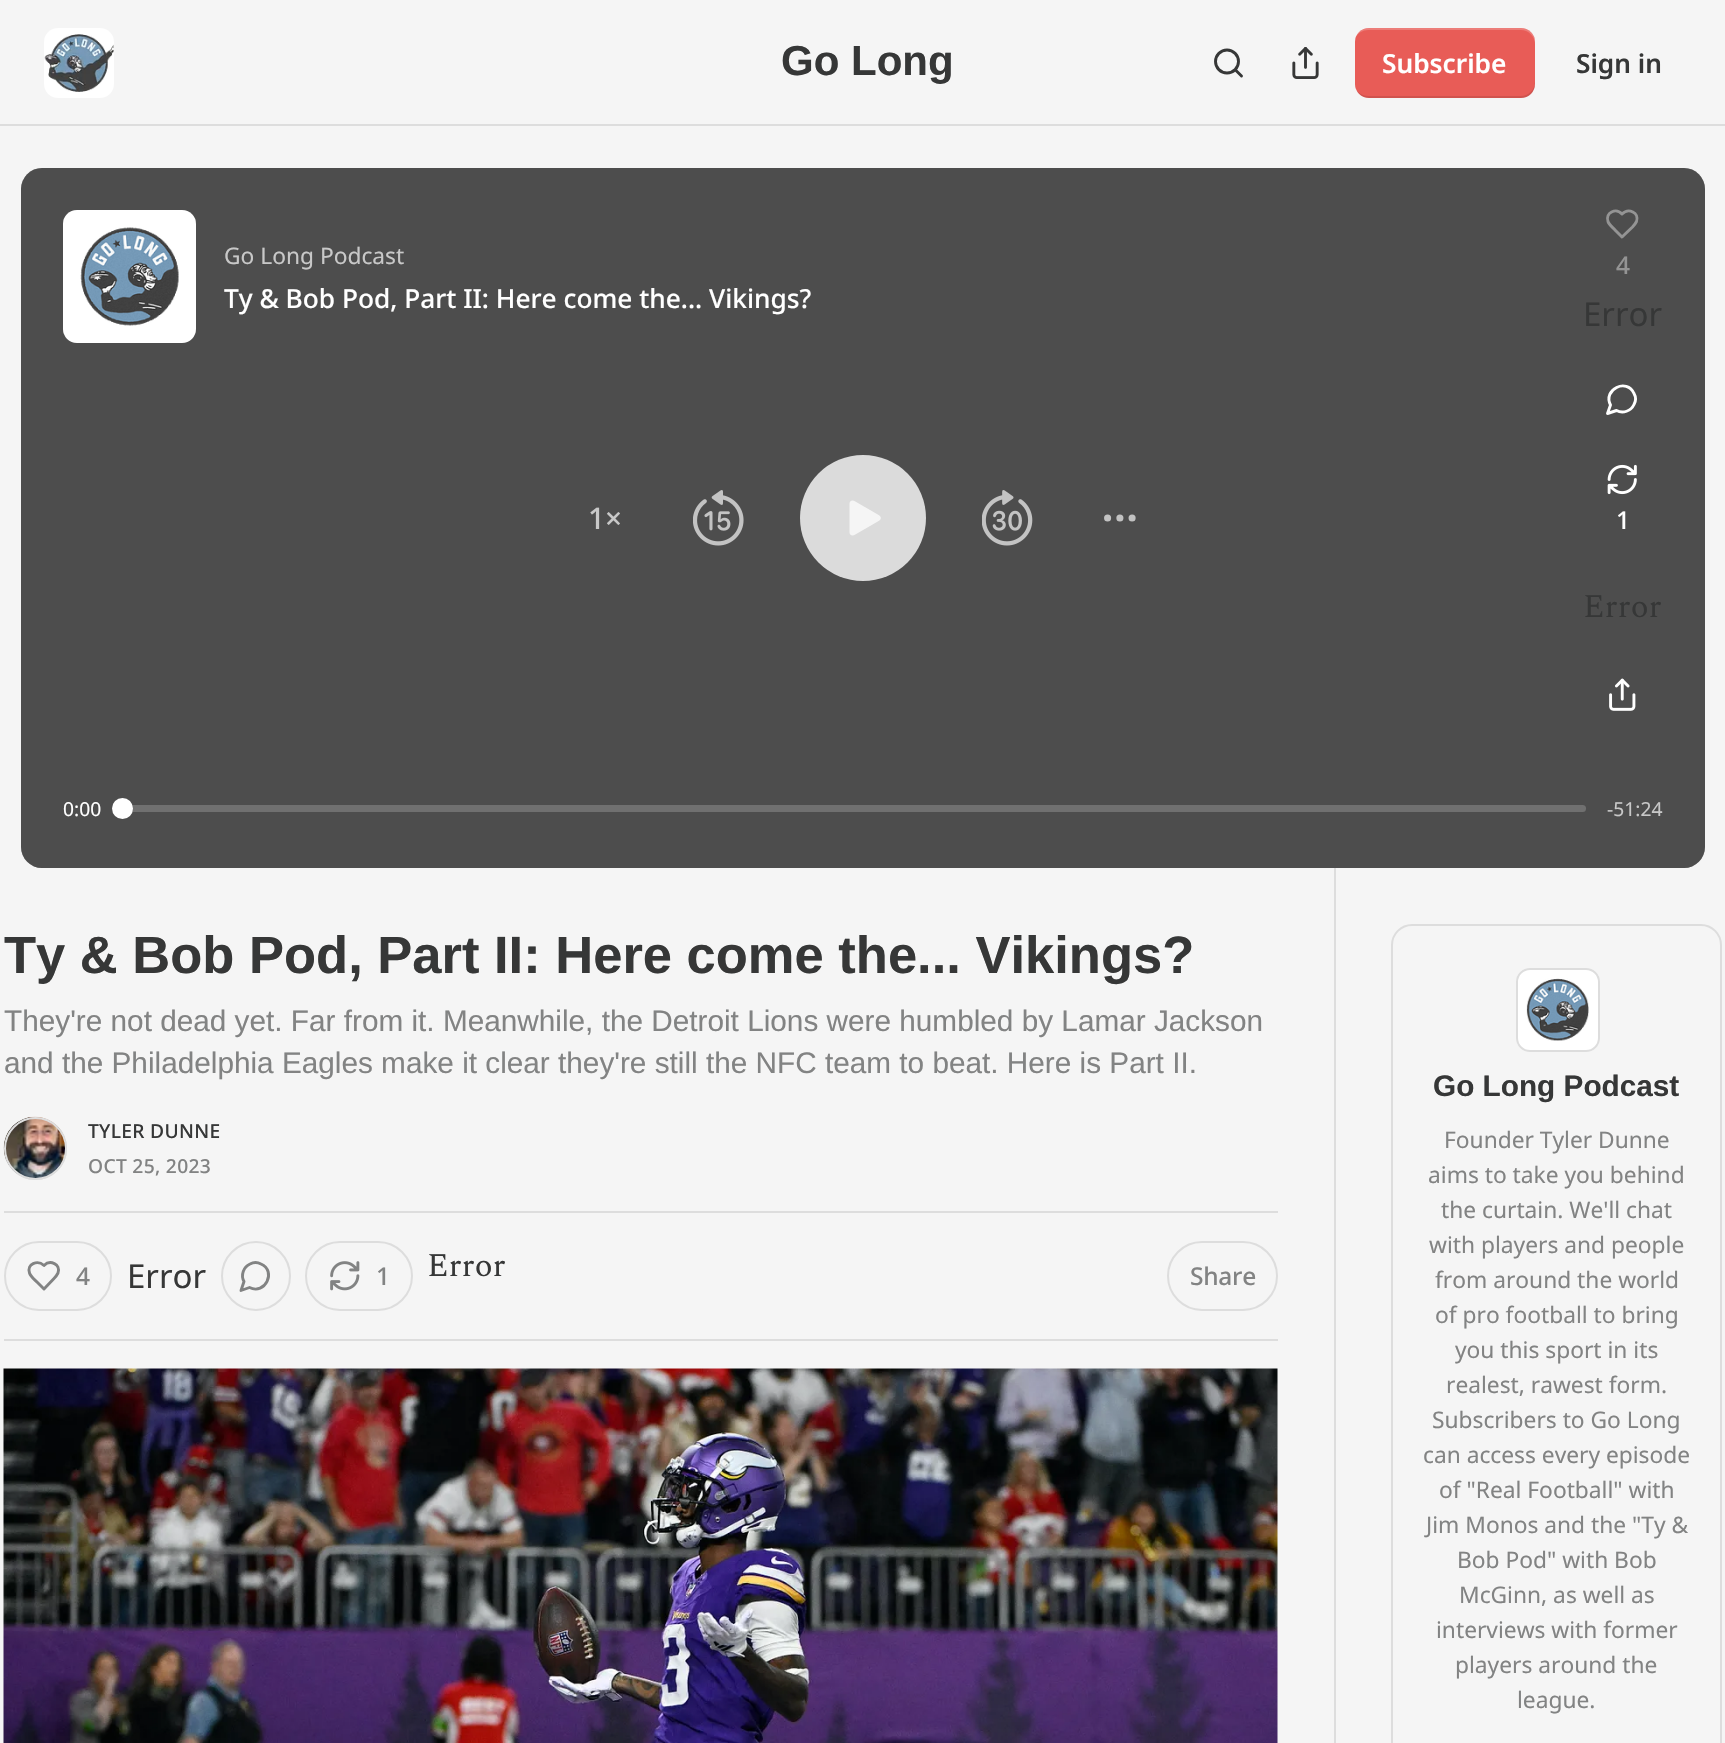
void draw(SkCanvas* canvas) {
    SkPaint paint;
    paint.setAntiAlias(true);
    auto spacedText = [&](const char* s, float x, float y, const SkFont& font, const SkPaint& ink, float letter, float word) {
        std::vector<SkGlyphID> glyphs(font.countText(s, strlen(s), SkTextEncoding::kUTF8));
        std::vector<float> xs(glyphs.size());
        font.textToGlyphs(s, strlen(s), SkTextEncoding::kUTF8, glyphs);
        font.getXPos(glyphs, xs, x);
        float extra = 0;
        for (size_t i = 0; i < glyphs.size(); i++) {
            xs[i] += extra;
            extra += letter + word * (glyphs[i] == font.unicharToGlyph(' '));
        }
        canvas->drawTextBlob(SkTextBlob::MakeFromPosHGlyphs(glyphs, xs, y, font), 0, 0, ink);
    };
    canvas->clear(0xFFF5F5F5);
    paint.setColor(0xFFDDDDDD);
    canvas->drawRect(SkRect::MakeXYWH(0, 124, 1725, 2), paint);
    paint.setColor(0xFFFFFFFF);
    canvas->drawRoundRect(SkRect::MakeXYWH(44, 28, 70, 70), 14, 14, paint);
    canvas->drawImageRect(SkImages::DeferredFromEncodedData(SkData::MakeFromFileName("img1.png")), SkRect::MakeXYWH(44, 34, 70, 58), SkSamplingOptions());
    SkFont font1(fontMgr->matchFamilyStyle("Liberation Sans", SkFontStyle::Bold()), 42);
    font1.setSubpixel(true);
    paint.setColor(0xFF363737);
    canvas->drawString("Go Long", 781, 75, font1, paint);
    paint.setStyle(SkPaint::kStroke_Style);
    paint.setStrokeWidth(2.9f);
    canvas->drawCircle(1227, 61.5f, 11.5f, paint);
    paint.setStrokeCap(SkPaint::kRound_Cap);
    paint.setStrokeJoin(SkPaint::kRound_Join);
    canvas->drawPath(SkPathBuilder().moveTo(1241.5f, 76).lineTo(1235.5f, 70).detach(), paint);
    canvas->drawImageRect(SkImages::DeferredFromEncodedData(SkData::MakeFromFileName("img2.png")), SkRect::MakeXYWH(1292, 47, 27, 32), SkSamplingOptions());
    paint.setStyle(SkPaint::kFill_Style);
    paint.setColor(0xFFE85C57);
    canvas->drawRoundRect(SkRect::MakeXYWH(1355, 28, 180, 70), 14, 14, paint);
    paint.setColor(0x1A000000);
    canvas->drawPath(SkPathBuilder().moveTo(1356, 89).cubicTo(1358, 94, 1363, 98, 1369, 98).lineTo(1521, 98).cubicTo(1529, 98, 1535, 92, 1535, 84).lineTo(1535, 82).cubicTo(1535, 90, 1528, 96, 1521, 96).lineTo(1368, 96).cubicTo(1363, 96, 1358, 93, 1356, 89).close().detach(), paint);
    paint.setColor(0x33FFFFFF);
    canvas->drawPath(SkPathBuilder().moveTo(1368, 30).lineTo(1521, 30).cubicTo(1528, 30, 1535, 36, 1535, 44).lineTo(1535, 42).cubicTo(1535, 34, 1529, 28, 1521, 28).lineTo(1369, 28).cubicTo(1363, 28, 1358, 32, 1356, 37).cubicTo(1358, 33, 1363, 30, 1368, 30).close().detach(), paint);
    SkFont font2(fontMgr->matchFamilyStyle("Noto Sans", SkFontStyle(600, SkFontStyle::kNormal_Width, SkFontStyle::kUpright_Slant)), 26.25f);
    font2.setSubpixel(true);
    paint.setColor(0xFFFFFFFF);
    canvas->drawString("Subscribe", 1382, 73, font2, paint);
    paint.setColor(0xFF363737);
    canvas->drawString("Sign in", 1576, 73, font2, paint);
    paint.setColor(0xFFA1A1A1);
    canvas->drawRoundRect(SkRect::MakeXYWH(21, 168, 1684, 700), 21, 21, paint);
    paint.setColor(0xBF303030);
    canvas->drawRoundRect(SkRect::MakeXYWH(21, 168, 1684, 700), 21, 21, paint);
    paint.setColor(0xFFFFFFFF);
    canvas->drawRoundRect(SkRect::MakeXYWH(63, 210, 133, 133), 14, 14, paint);
    canvas->drawImageRect(SkImages::DeferredFromEncodedData(SkData::MakeFromFileName("img3.png")), SkRect::MakeXYWH(80, 227, 99, 99), SkSamplingOptions());
    paint.setStyle(SkPaint::kStroke_Style);
    paint.setStrokeWidth(2);
    paint.setStrokeCap(SkPaint::kButt_Cap);
    paint.setStrokeJoin(SkPaint::kMiter_Join);
    paint.setColor(0x1AFFFFFF);
    canvas->drawRoundRect(SkRect::MakeXYWH(64, 211, 131, 131), 13, 13, paint);
    SkFont font3(fontMgr->matchFamilyStyle("Noto Sans", SkFontStyle::Normal()), 22.75f);
    font3.setSubpixel(true);
    paint.setStyle(SkPaint::kFill_Style);
    paint.setColor(0xFFC8C8C8);
    canvas->drawString("Go Long Podcast", 224, 264, font3, paint);
    SkFont font4(fontMgr->matchFamilyStyle("Noto Sans", SkFontStyle(500, SkFontStyle::kNormal_Width, SkFontStyle::kUpright_Slant)), 26.25f);
    font4.setSubpixel(true);
    paint.setColor(0xFFFFFFFF);
    canvas->drawString("Ty & Bob Pod, Part II: Here come the... Vikings?", 224, 308, font4, paint);
    paint.setStyle(SkPaint::kStroke_Style);
    paint.setStrokeWidth(2.9f);
    paint.setStrokeCap(SkPaint::kRound_Cap);
    paint.setStrokeJoin(SkPaint::kRound_Join);
    paint.setColor(0xFF949494);
    canvas->drawPath(SkPathBuilder().moveTo(1632.5f, 227).cubicTo(1634, 225.5f, 1635.5f, 223.5f, 1636.5f, 221.5f).cubicTo(1639.5f, 212.5f, 1628.5f, 207.5f, 1622, 214).cubicTo(1616, 207.5f, 1605, 212.5f, 1608, 221.5f).cubicTo(1609, 225, 1613, 227.5f, 1615.5f, 230.5f).lineTo(1622, 237).close().detach(), paint);
    SkFont font5(fontMgr->matchFamilyStyle("Noto Sans", SkFontStyle(500, SkFontStyle::kNormal_Width, SkFontStyle::kUpright_Slant)), 24.5f);
    font5.setSubpixel(true);
    paint.setStyle(SkPaint::kFill_Style);
    canvas->drawString("4", 1616, 274, font5, paint);
    SkFont font6(fontMgr->matchFamilyStyle("Noto Sans", SkFontStyle::Normal()), 33);
    font6.setSubpixel(true);
    paint.setColor(0xFF363737);
    canvas->drawString("Error", 1583, 326, font6, paint);
    paint.setStyle(SkPaint::kStroke_Style);
    paint.setColor(0xFFFFFFFF);
    canvas->drawPath(SkPathBuilder().moveTo(1616.5f, 410.5f).cubicTo(1623, 414, 1631, 411, 1634, 404.5f).cubicTo(1636, 401, 1636, 397, 1634, 393.5f).cubicTo(1627, 377.5f, 1602.5f, 389.5f, 1610.5f, 405).lineTo(1607.5f, 413.5f).close().detach(), paint);
    canvas->drawImageRect(SkImages::DeferredFromEncodedData(SkData::MakeFromFileName("img4.png")), SkRect::MakeXYWH(1607, 464, 30, 31), SkSamplingOptions());
    paint.setStyle(SkPaint::kFill_Style);
    canvas->drawString("1", 1616, 529, font5, paint);
    SkFont font7(fontMgr->matchFamilyStyle("Spectral", SkFontStyle::Normal()), 33);
    font7.setSubpixel(true);
    paint.setColor(0xFF363737);
    canvas->drawString("Error", 1583, 617, font7, paint);
    canvas->drawImageRect(SkImages::DeferredFromEncodedData(SkData::MakeFromFileName("img5.png")), SkRect::MakeXYWH(1609, 678, 27, 33), SkSamplingOptions());
    SkFont font8(fontMgr->matchFamilyStyle("Noto Sans", SkFontStyle(500, SkFontStyle::kNormal_Width, SkFontStyle::kUpright_Slant)), 29.75f);
    font8.setSubpixel(true);
    paint.setColor(0xFFC8C8C8);
    canvas->drawString("1×", 588, 529, font8, paint);
    canvas->drawImageRect(SkImages::DeferredFromEncodedData(SkData::MakeFromFileName("img6.png")), SkRect::MakeXYWH(693, 490, 51, 56), SkSamplingOptions());
    paint.setColor(0xFFDBDBDB);
    canvas->drawCircle(863, 518, 63, paint);
    canvas->drawImageRect(SkImages::DeferredFromEncodedData(SkData::MakeFromFileName("img7.png")), SkRect::MakeXYWH(849, 500, 32, 36), SkSamplingOptions());
    canvas->drawImageRect(SkImages::DeferredFromEncodedData(SkData::MakeFromFileName("img8.png")), SkRect::MakeXYWH(982, 490, 51, 56), SkSamplingOptions());
    paint.setStyle(SkPaint::kStroke_Style);
    paint.setStrokeWidth(3.5f);
    paint.setStrokeCap(SkPaint::kButt_Cap);
    paint.setStrokeJoin(SkPaint::kMiter_Join);
    paint.setColor(0xFFC2C2C2);
    canvas->drawCircle(1119.9f, 518, 1.8f, paint);
    canvas->drawCircle(1132.1f, 518, 1.8f, paint);
    canvas->drawCircle(1107.6f, 518, 1.8f, paint);
    SkFont font9(fontMgr->matchFamilyStyle("Noto Sans", SkFontStyle::Normal()), 19.25f);
    font9.setSubpixel(true);
    paint.setStyle(SkPaint::kFill_Style);
    paint.setColor(0xFFFFFFFF);
    canvas->drawString("0:00", 63, 816, font9, paint);
    paint.setColor(0xFF707070);
    canvas->drawRoundRect(SkRect::MakeXYWH(123, 805, 1463, 7), 3.5f, 3.5f, paint);
    paint.setColor(0xFFFFFFFF);
    canvas->drawCircle(122.5f, 808.5f, 10.5f, paint);
    paint.setColor(0xFFC8C8C8);
    canvas->drawString("-51:24", 1607, 816, font9, paint);
    SkFont font10(fontMgr->matchFamilyStyle("Liberation Sans", SkFontStyle::Bold()), 52.5f);
    font10.setSubpixel(true);
    paint.setColor(0xFF363737);
    canvas->drawString("Ty & Bob Pod, Part II: Here come the... Vikings?", 4, 973, font10, paint);
    SkFont font11(fontMgr->matchFamilyStyle("Liberation Sans", SkFontStyle::Normal()), 29.75f);
    font11.setSubpixel(true);
    paint.setColor(0xFF828383);
    canvas->drawString("They're not dead yet. Far from it. Meanwhile, the Detroit Lions were humbled by Lamar Jackson", 4, 1031, font11, paint);
    canvas->drawString("and the Philadelphia Eagles make it clear they're still the NFC team to beat. Here is Part II.", 4, 1073, font11, paint);
    paint.setStyle(SkPaint::kStroke_Style);
    paint.setStrokeWidth(2);
    paint.setColor(0xFFDDDDDD);
    canvas->drawCircle(35.5f, 1148.5f, 30.5f, paint);
    canvas->drawImageRect(SkImages::DeferredFromEncodedData(SkData::MakeFromFileName("img9.png")), SkRect::MakeXYWH(3, 1116, 64, 64), SkSamplingOptions());
    canvas->drawCircle(35.5f, 1148.5f, 30.5f, paint);
    SkFont font12(fontMgr->matchFamilyStyle("Noto Sans", SkFontStyle(500, SkFontStyle::kNormal_Width, SkFontStyle::kUpright_Slant)), 19.25f);
    font12.setSubpixel(true);
    paint.setStyle(SkPaint::kFill_Style);
    paint.setColor(0xFF363737);
    spacedText("TYLER DUNNE", 88, 1138, font12, paint, 0.3f, 0);
    paint.setColor(0xFF828383);
    spacedText("OCT 25, 2023", 88, 1173, font12, paint, 0.3f, 0);
    paint.setColor(0xFFDDDDDD);
    canvas->drawRect(SkRect::MakeXYWH(4, 1211, 1274, 2), paint);
    canvas->drawRect(SkRect::MakeXYWH(4, 1339, 1274, 2), paint);
    paint.setStyle(SkPaint::kStroke_Style);
    canvas->drawRoundRect(SkRect::MakeXYWH(5, 1242, 106, 68), 34, 34, paint);
    paint.setStrokeWidth(2.9f);
    paint.setStrokeCap(SkPaint::kRound_Cap);
    paint.setStrokeJoin(SkPaint::kRound_Join);
    paint.setColor(0xFF828383);
    canvas->drawPath(SkPathBuilder().moveTo(54, 1278.5f).cubicTo(55.5f, 1277, 57, 1275, 58, 1273).cubicTo(61, 1264, 50, 1259.5f, 44, 1265.5f).cubicTo(37.5f, 1259.5f, 26.5f, 1264, 29.5f, 1273).cubicTo(30.5f, 1276.5f, 34.5f, 1279.5f, 37, 1282).lineTo(44, 1289).close().detach(), paint);
    paint.setStyle(SkPaint::kFill_Style);
    spacedText("4", 76, 1285, font5, paint, -0.25f, 0);
    paint.setColor(0xFF363737);
    canvas->drawString("Error", 127, 1288, font6, paint);
    paint.setStyle(SkPaint::kStroke_Style);
    paint.setStrokeWidth(2);
    paint.setStrokeCap(SkPaint::kButt_Cap);
    paint.setStrokeJoin(SkPaint::kMiter_Join);
    paint.setColor(0xFFDDDDDD);
    canvas->drawCircle(256, 1276, 34, paint);
    paint.setStrokeWidth(2.9f);
    paint.setStrokeCap(SkPaint::kRound_Cap);
    paint.setStrokeJoin(SkPaint::kRound_Join);
    paint.setColor(0xFF828383);
    canvas->drawPath(SkPathBuilder().moveTo(249.5f, 1287.5f).cubicTo(265, 1295.5f, 277, 1271, 261, 1264).cubicTo(257.5f, 1262, 253.5f, 1262, 250, 1264).cubicTo(243.5f, 1267, 240.5f, 1275, 244, 1281.5f).lineTo(241, 1290.5f).close().detach(), paint);
    paint.setStrokeWidth(2);
    paint.setStrokeCap(SkPaint::kButt_Cap);
    paint.setStrokeJoin(SkPaint::kMiter_Join);
    paint.setColor(0xFFDDDDDD);
    canvas->drawRoundRect(SkRect::MakeXYWH(306, 1242, 106, 68), 34, 34, paint);
    canvas->drawImageRect(SkImages::DeferredFromEncodedData(SkData::MakeFromFileName("img10.png")), SkRect::MakeXYWH(330, 1261, 30, 30), SkSamplingOptions());
    paint.setStyle(SkPaint::kFill_Style);
    paint.setColor(0xFF828383);
    spacedText("1", 376, 1285, font5, paint, -0.25f, 0);
    paint.setColor(0xFF363737);
    canvas->drawString("Error", 427, 1276, font7, paint);
    paint.setStyle(SkPaint::kStroke_Style);
    paint.setColor(0xFFDDDDDD);
    canvas->drawRoundRect(SkRect::MakeXYWH(1168, 1242, 109, 68), 34, 34, paint);
    paint.setStyle(SkPaint::kFill_Style);
    paint.setColor(0xFF828383);
    spacedText("Share", 1190, 1285, font5, paint, -0.25f, 0);
    canvas->drawImageRect(SkImages::DeferredFromEncodedData(SkData::MakeFromFileName("img11.png")), SkRect::MakeXYWH(3, 1368, 1275, 375), SkSamplingOptions());
    paint.setColor(0xFFDDDDDD);
    canvas->drawRect(SkRect::MakeXYWH(1334, 868, 2, 875), paint);
    paint.setStyle(SkPaint::kStroke_Style);
    canvas->drawRoundRect(SkRect::MakeXYWH(1392, 925, 329, 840), 20, 20, paint);
    paint.setStyle(SkPaint::kFill_Style);
    paint.setColor(0xFFFFFFFF);
    canvas->drawRoundRect(SkRect::MakeXYWH(1516, 968, 84, 84), 14, 14, paint);
    canvas->drawImageRect(SkImages::DeferredFromEncodedData(SkData::MakeFromFileName("img12.png")), SkRect::MakeXYWH(1526, 978, 63, 63), SkSamplingOptions());
    paint.setStyle(SkPaint::kStroke_Style);
    paint.setColor(0xFFDDDDDD);
    canvas->drawRoundRect(SkRect::MakeXYWH(1517, 969, 82, 82), 13, 13, paint);
    SkFont font13(fontMgr->matchFamilyStyle("Liberation Sans", SkFontStyle::Bold()), 29.75f);
    font13.setSubpixel(true);
    paint.setStyle(SkPaint::kFill_Style);
    paint.setColor(0xFF363737);
    canvas->drawString("Go Long Podcast", 1433, 1096, font13, paint);
    paint.setColor(0xFF828383);
    canvas->drawString("Founder Tyler Dunne", 1444, 1148, font3, paint);
    canvas->drawString("aims to take you behind", 1428, 1183, font3, paint);
    canvas->drawString("the curtain. We'll chat", 1441, 1218, font3, paint);
    canvas->drawString("with players and people", 1429, 1253, font3, paint);
    canvas->drawString("from around the world", 1435, 1288, font3, paint);
    canvas->drawString("of pro football to bring", 1435, 1323, font3, paint);
    canvas->drawString("you this sport in its", 1455, 1358, font3, paint);
    canvas->drawString("realest, rawest form.", 1446, 1393, font3, paint);
    canvas->drawString("Subscribers to Go Long", 1432, 1428, font3, paint);
    canvas->drawString("can access every episode", 1423, 1463, font3, paint);
    canvas->drawString("of \"Real Football\" with", 1439, 1498, font3, paint);
    canvas->drawString("Jim Monos and the \"Ty &", 1426, 1533, font3, paint);
    canvas->drawString("Bob Pod\" with Bob", 1457, 1568, font3, paint);
    canvas->drawString("McGinn, as well as", 1459, 1603, font3, paint);
    canvas->drawString("interviews with former", 1436, 1638, font3, paint);
    canvas->drawString("players around the", 1455, 1673, font3, paint);
    canvas->drawString("league.", 1517, 1708, font3, paint);
}
